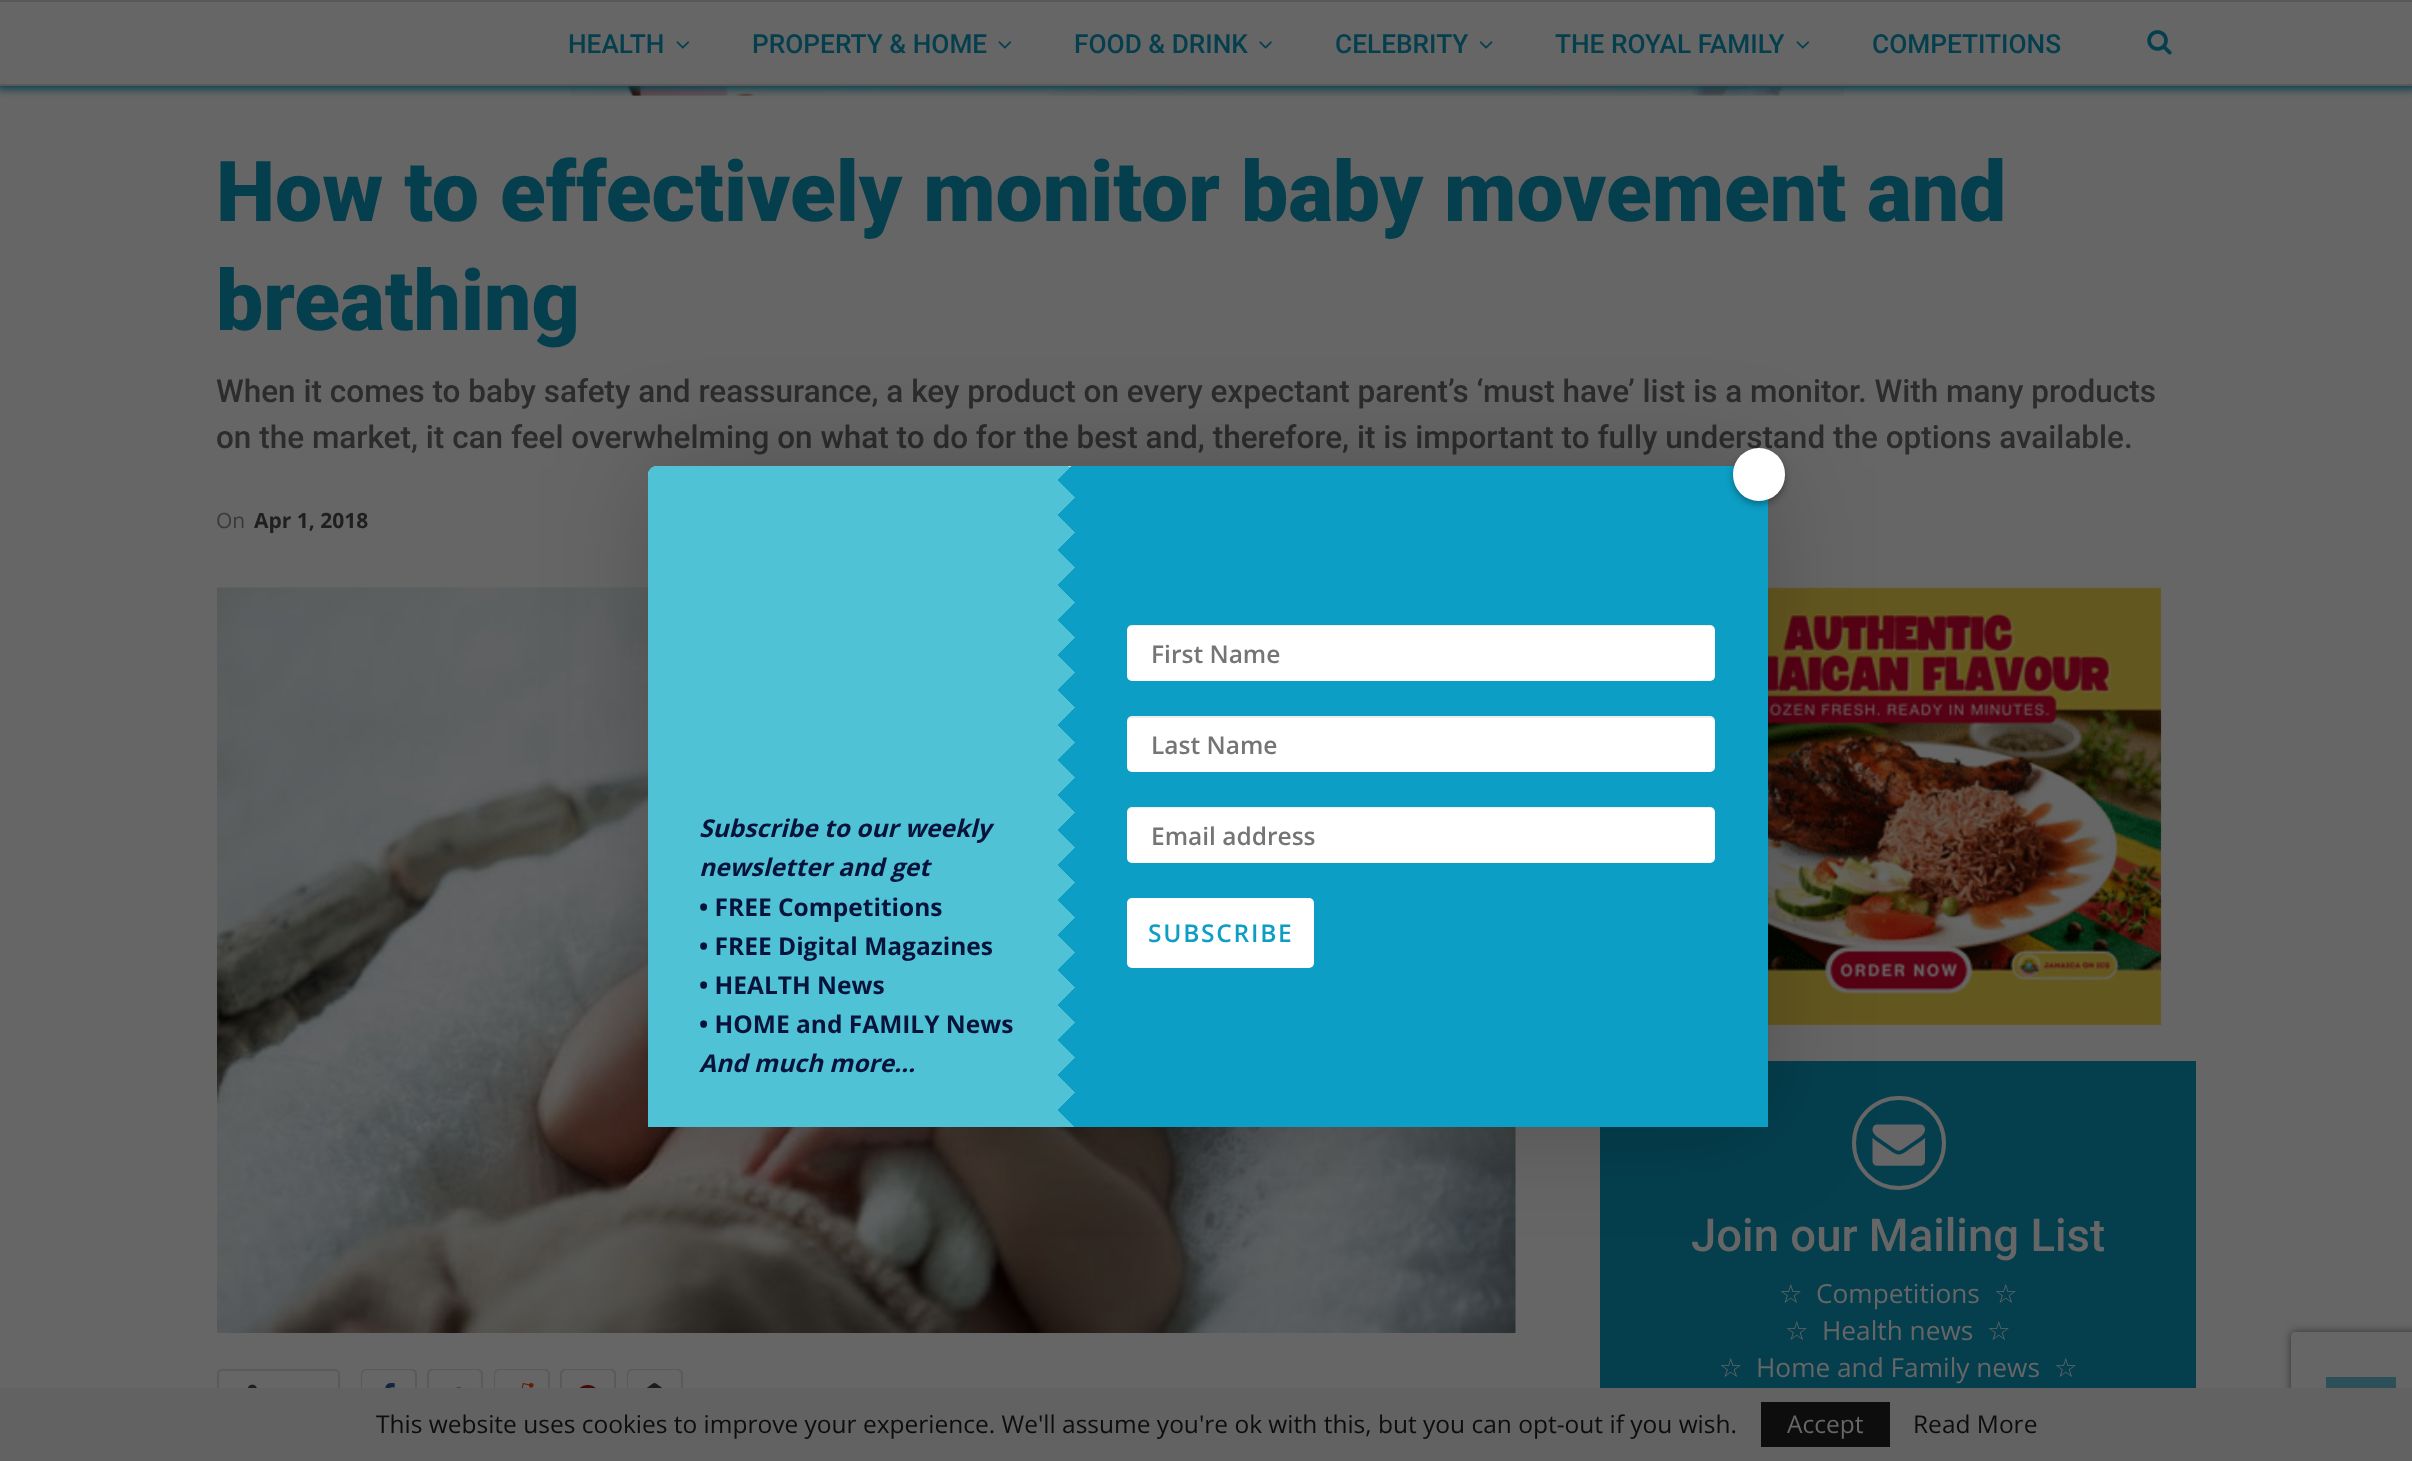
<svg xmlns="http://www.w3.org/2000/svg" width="2412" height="1461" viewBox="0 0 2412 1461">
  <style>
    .t1 { font: 500 26.25px Roboto; fill: #053f4e; }
    .t2 { font: 900 84px Roboto; fill: #053f4e; }
    .t3 { font: 500 31.5px Roboto; fill: #2c2c2c; }
    .t4 { font: 21px Open Sans; fill: #393939; }
    .t5 { font: bold 21px Open Sans; fill: #1f1f1f; }
    .t6 { font: 500 45.5px Roboto; fill: #666; }
    .t7 { font: 26.25px DejaVu Sans; fill: #666; }
    .t8 { font: 26.25px Open Sans; fill: #666; }
    .t9 { font: italic bold 24.5px Open Sans; fill: #08133c; }
    .t10 { font: bold 24.5px Open Sans; fill: #08133c; }
    .t11 { font: 600 24.5px Open Sans; fill: #757575; }
    .t12 { font: 600 24.5px Open Sans; letter-spacing: 1.75px; fill: #0c9ec4; }
    .t13 { font: 24.5px Open Sans; fill: #0d0d0d; }
    .t14 { font: 24.5px Open Sans; fill: #666; }
  </style>
  <defs>
    <clipPath id="clip1"><path d="M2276 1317H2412V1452H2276ZM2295 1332H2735C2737 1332 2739 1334 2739 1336V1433C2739 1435 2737 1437 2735 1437H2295C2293 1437 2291 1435 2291 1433V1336C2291 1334 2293 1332 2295 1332Z" clip-rule="evenodd"/></clipPath>
    <linearGradient id="g1" gradientUnits="userSpaceOnUse" x1="1119" y1="1101" x2="1067" y2="1154"><stop offset="0.33" stop-color="#0c9ec4" stop-opacity="0"/><stop offset="0.33" stop-color="#0c9ec4"/><stop offset="0.67" stop-color="#0c9ec4"/><stop offset="0.67" stop-color="#0c9ec4" stop-opacity="0"/></linearGradient>
    <linearGradient id="g2" gradientUnits="userSpaceOnUse" x1="1119" y1="1066" x2="1067" y2="1119"><stop offset="0.33" stop-color="#0c9ec4" stop-opacity="0"/><stop offset="0.33" stop-color="#0c9ec4"/><stop offset="0.67" stop-color="#0c9ec4"/><stop offset="0.67" stop-color="#0c9ec4" stop-opacity="0"/></linearGradient>
    <linearGradient id="g3" gradientUnits="userSpaceOnUse" x1="1119" y1="1031" x2="1067" y2="1084"><stop offset="0.33" stop-color="#0c9ec4" stop-opacity="0"/><stop offset="0.33" stop-color="#0c9ec4"/><stop offset="0.67" stop-color="#0c9ec4"/><stop offset="0.67" stop-color="#0c9ec4" stop-opacity="0"/></linearGradient>
    <linearGradient id="g4" gradientUnits="userSpaceOnUse" x1="1119" y1="996" x2="1067" y2="1049"><stop offset="0.33" stop-color="#0c9ec4" stop-opacity="0"/><stop offset="0.33" stop-color="#0c9ec4"/><stop offset="0.67" stop-color="#0c9ec4"/><stop offset="0.67" stop-color="#0c9ec4" stop-opacity="0"/></linearGradient>
    <linearGradient id="g5" gradientUnits="userSpaceOnUse" x1="1119" y1="961" x2="1067" y2="1014"><stop offset="0.33" stop-color="#0c9ec4" stop-opacity="0"/><stop offset="0.33" stop-color="#0c9ec4"/><stop offset="0.67" stop-color="#0c9ec4"/><stop offset="0.67" stop-color="#0c9ec4" stop-opacity="0"/></linearGradient>
    <linearGradient id="g6" gradientUnits="userSpaceOnUse" x1="1119" y1="926" x2="1067" y2="979"><stop offset="0.33" stop-color="#0c9ec4" stop-opacity="0"/><stop offset="0.33" stop-color="#0c9ec4"/><stop offset="0.67" stop-color="#0c9ec4"/><stop offset="0.67" stop-color="#0c9ec4" stop-opacity="0"/></linearGradient>
    <linearGradient id="g7" gradientUnits="userSpaceOnUse" x1="1119" y1="891" x2="1067" y2="944"><stop offset="0.33" stop-color="#0c9ec4" stop-opacity="0"/><stop offset="0.33" stop-color="#0c9ec4"/><stop offset="0.67" stop-color="#0c9ec4"/><stop offset="0.67" stop-color="#0c9ec4" stop-opacity="0"/></linearGradient>
    <linearGradient id="g8" gradientUnits="userSpaceOnUse" x1="1119" y1="856" x2="1067" y2="909"><stop offset="0.33" stop-color="#0c9ec4" stop-opacity="0"/><stop offset="0.33" stop-color="#0c9ec4"/><stop offset="0.67" stop-color="#0c9ec4"/><stop offset="0.67" stop-color="#0c9ec4" stop-opacity="0"/></linearGradient>
    <linearGradient id="g9" gradientUnits="userSpaceOnUse" x1="1119" y1="821" x2="1067" y2="874"><stop offset="0.33" stop-color="#0c9ec4" stop-opacity="0"/><stop offset="0.33" stop-color="#0c9ec4"/><stop offset="0.67" stop-color="#0c9ec4"/><stop offset="0.67" stop-color="#0c9ec4" stop-opacity="0"/></linearGradient>
    <linearGradient id="g10" gradientUnits="userSpaceOnUse" x1="1119" y1="786" x2="1067" y2="839"><stop offset="0.33" stop-color="#0c9ec4" stop-opacity="0"/><stop offset="0.33" stop-color="#0c9ec4"/><stop offset="0.67" stop-color="#0c9ec4"/><stop offset="0.67" stop-color="#0c9ec4" stop-opacity="0"/></linearGradient>
    <linearGradient id="g11" gradientUnits="userSpaceOnUse" x1="1119" y1="751" x2="1067" y2="804"><stop offset="0.33" stop-color="#0c9ec4" stop-opacity="0"/><stop offset="0.33" stop-color="#0c9ec4"/><stop offset="0.67" stop-color="#0c9ec4"/><stop offset="0.67" stop-color="#0c9ec4" stop-opacity="0"/></linearGradient>
    <linearGradient id="g12" gradientUnits="userSpaceOnUse" x1="1119" y1="716" x2="1067" y2="769"><stop offset="0.33" stop-color="#0c9ec4" stop-opacity="0"/><stop offset="0.33" stop-color="#0c9ec4"/><stop offset="0.67" stop-color="#0c9ec4"/><stop offset="0.67" stop-color="#0c9ec4" stop-opacity="0"/></linearGradient>
    <linearGradient id="g13" gradientUnits="userSpaceOnUse" x1="1119" y1="681" x2="1067" y2="734"><stop offset="0.33" stop-color="#0c9ec4" stop-opacity="0"/><stop offset="0.33" stop-color="#0c9ec4"/><stop offset="0.67" stop-color="#0c9ec4"/><stop offset="0.67" stop-color="#0c9ec4" stop-opacity="0"/></linearGradient>
    <linearGradient id="g14" gradientUnits="userSpaceOnUse" x1="1119" y1="646" x2="1067" y2="699"><stop offset="0.33" stop-color="#0c9ec4" stop-opacity="0"/><stop offset="0.33" stop-color="#0c9ec4"/><stop offset="0.67" stop-color="#0c9ec4"/><stop offset="0.67" stop-color="#0c9ec4" stop-opacity="0"/></linearGradient>
    <linearGradient id="g15" gradientUnits="userSpaceOnUse" x1="1119" y1="611" x2="1067" y2="664"><stop offset="0.33" stop-color="#0c9ec4" stop-opacity="0"/><stop offset="0.33" stop-color="#0c9ec4"/><stop offset="0.67" stop-color="#0c9ec4"/><stop offset="0.67" stop-color="#0c9ec4" stop-opacity="0"/></linearGradient>
    <linearGradient id="g16" gradientUnits="userSpaceOnUse" x1="1119" y1="576" x2="1067" y2="629"><stop offset="0.33" stop-color="#0c9ec4" stop-opacity="0"/><stop offset="0.33" stop-color="#0c9ec4"/><stop offset="0.67" stop-color="#0c9ec4"/><stop offset="0.67" stop-color="#0c9ec4" stop-opacity="0"/></linearGradient>
    <linearGradient id="g17" gradientUnits="userSpaceOnUse" x1="1119" y1="541" x2="1067" y2="594"><stop offset="0.33" stop-color="#0c9ec4" stop-opacity="0"/><stop offset="0.33" stop-color="#0c9ec4"/><stop offset="0.67" stop-color="#0c9ec4"/><stop offset="0.67" stop-color="#0c9ec4" stop-opacity="0"/></linearGradient>
    <linearGradient id="g18" gradientUnits="userSpaceOnUse" x1="1119" y1="506" x2="1067" y2="559"><stop offset="0.33" stop-color="#0c9ec4" stop-opacity="0"/><stop offset="0.33" stop-color="#0c9ec4"/><stop offset="0.67" stop-color="#0c9ec4"/><stop offset="0.67" stop-color="#0c9ec4" stop-opacity="0"/></linearGradient>
    <linearGradient id="g19" gradientUnits="userSpaceOnUse" x1="1119" y1="471" x2="1067" y2="524"><stop offset="0.33" stop-color="#0c9ec4" stop-opacity="0"/><stop offset="0.33" stop-color="#0c9ec4"/><stop offset="0.67" stop-color="#0c9ec4"/><stop offset="0.67" stop-color="#0c9ec4" stop-opacity="0"/></linearGradient>
    <linearGradient id="g20" gradientUnits="userSpaceOnUse" x1="1119" y1="1119" x2="1067" y2="1066"><stop offset="0.33" stop-color="#0c9ec4" stop-opacity="0"/><stop offset="0.33" stop-color="#0c9ec4"/><stop offset="0.67" stop-color="#0c9ec4"/><stop offset="0.67" stop-color="#0c9ec4" stop-opacity="0"/></linearGradient>
    <linearGradient id="g21" gradientUnits="userSpaceOnUse" x1="1119" y1="1084" x2="1067" y2="1031"><stop offset="0.33" stop-color="#0c9ec4" stop-opacity="0"/><stop offset="0.33" stop-color="#0c9ec4"/><stop offset="0.67" stop-color="#0c9ec4"/><stop offset="0.67" stop-color="#0c9ec4" stop-opacity="0"/></linearGradient>
    <linearGradient id="g22" gradientUnits="userSpaceOnUse" x1="1119" y1="1049" x2="1067" y2="996"><stop offset="0.33" stop-color="#0c9ec4" stop-opacity="0"/><stop offset="0.33" stop-color="#0c9ec4"/><stop offset="0.67" stop-color="#0c9ec4"/><stop offset="0.67" stop-color="#0c9ec4" stop-opacity="0"/></linearGradient>
    <linearGradient id="g23" gradientUnits="userSpaceOnUse" x1="1119" y1="1014" x2="1067" y2="961"><stop offset="0.33" stop-color="#0c9ec4" stop-opacity="0"/><stop offset="0.33" stop-color="#0c9ec4"/><stop offset="0.67" stop-color="#0c9ec4"/><stop offset="0.67" stop-color="#0c9ec4" stop-opacity="0"/></linearGradient>
    <linearGradient id="g24" gradientUnits="userSpaceOnUse" x1="1119" y1="979" x2="1067" y2="926"><stop offset="0.33" stop-color="#0c9ec4" stop-opacity="0"/><stop offset="0.33" stop-color="#0c9ec4"/><stop offset="0.67" stop-color="#0c9ec4"/><stop offset="0.67" stop-color="#0c9ec4" stop-opacity="0"/></linearGradient>
    <linearGradient id="g25" gradientUnits="userSpaceOnUse" x1="1119" y1="944" x2="1067" y2="891"><stop offset="0.33" stop-color="#0c9ec4" stop-opacity="0"/><stop offset="0.33" stop-color="#0c9ec4"/><stop offset="0.67" stop-color="#0c9ec4"/><stop offset="0.67" stop-color="#0c9ec4" stop-opacity="0"/></linearGradient>
    <linearGradient id="g26" gradientUnits="userSpaceOnUse" x1="1119" y1="909" x2="1067" y2="856"><stop offset="0.33" stop-color="#0c9ec4" stop-opacity="0"/><stop offset="0.33" stop-color="#0c9ec4"/><stop offset="0.67" stop-color="#0c9ec4"/><stop offset="0.67" stop-color="#0c9ec4" stop-opacity="0"/></linearGradient>
    <linearGradient id="g27" gradientUnits="userSpaceOnUse" x1="1119" y1="874" x2="1067" y2="821"><stop offset="0.33" stop-color="#0c9ec4" stop-opacity="0"/><stop offset="0.33" stop-color="#0c9ec4"/><stop offset="0.67" stop-color="#0c9ec4"/><stop offset="0.67" stop-color="#0c9ec4" stop-opacity="0"/></linearGradient>
    <linearGradient id="g28" gradientUnits="userSpaceOnUse" x1="1119" y1="839" x2="1067" y2="786"><stop offset="0.33" stop-color="#0c9ec4" stop-opacity="0"/><stop offset="0.33" stop-color="#0c9ec4"/><stop offset="0.67" stop-color="#0c9ec4"/><stop offset="0.67" stop-color="#0c9ec4" stop-opacity="0"/></linearGradient>
    <linearGradient id="g29" gradientUnits="userSpaceOnUse" x1="1119" y1="804" x2="1067" y2="751"><stop offset="0.33" stop-color="#0c9ec4" stop-opacity="0"/><stop offset="0.33" stop-color="#0c9ec4"/><stop offset="0.67" stop-color="#0c9ec4"/><stop offset="0.67" stop-color="#0c9ec4" stop-opacity="0"/></linearGradient>
    <linearGradient id="g30" gradientUnits="userSpaceOnUse" x1="1119" y1="769" x2="1067" y2="716"><stop offset="0.33" stop-color="#0c9ec4" stop-opacity="0"/><stop offset="0.33" stop-color="#0c9ec4"/><stop offset="0.67" stop-color="#0c9ec4"/><stop offset="0.67" stop-color="#0c9ec4" stop-opacity="0"/></linearGradient>
    <linearGradient id="g31" gradientUnits="userSpaceOnUse" x1="1119" y1="734" x2="1067" y2="681"><stop offset="0.33" stop-color="#0c9ec4" stop-opacity="0"/><stop offset="0.33" stop-color="#0c9ec4"/><stop offset="0.67" stop-color="#0c9ec4"/><stop offset="0.67" stop-color="#0c9ec4" stop-opacity="0"/></linearGradient>
    <linearGradient id="g32" gradientUnits="userSpaceOnUse" x1="1119" y1="699" x2="1067" y2="646"><stop offset="0.33" stop-color="#0c9ec4" stop-opacity="0"/><stop offset="0.33" stop-color="#0c9ec4"/><stop offset="0.67" stop-color="#0c9ec4"/><stop offset="0.67" stop-color="#0c9ec4" stop-opacity="0"/></linearGradient>
    <linearGradient id="g33" gradientUnits="userSpaceOnUse" x1="1119" y1="664" x2="1067" y2="611"><stop offset="0.33" stop-color="#0c9ec4" stop-opacity="0"/><stop offset="0.33" stop-color="#0c9ec4"/><stop offset="0.67" stop-color="#0c9ec4"/><stop offset="0.67" stop-color="#0c9ec4" stop-opacity="0"/></linearGradient>
    <linearGradient id="g34" gradientUnits="userSpaceOnUse" x1="1119" y1="629" x2="1067" y2="576"><stop offset="0.33" stop-color="#0c9ec4" stop-opacity="0"/><stop offset="0.33" stop-color="#0c9ec4"/><stop offset="0.67" stop-color="#0c9ec4"/><stop offset="0.67" stop-color="#0c9ec4" stop-opacity="0"/></linearGradient>
    <linearGradient id="g35" gradientUnits="userSpaceOnUse" x1="1119" y1="594" x2="1067" y2="541"><stop offset="0.33" stop-color="#0c9ec4" stop-opacity="0"/><stop offset="0.33" stop-color="#0c9ec4"/><stop offset="0.67" stop-color="#0c9ec4"/><stop offset="0.67" stop-color="#0c9ec4" stop-opacity="0"/></linearGradient>
    <linearGradient id="g36" gradientUnits="userSpaceOnUse" x1="1119" y1="559" x2="1067" y2="506"><stop offset="0.33" stop-color="#0c9ec4" stop-opacity="0"/><stop offset="0.33" stop-color="#0c9ec4"/><stop offset="0.67" stop-color="#0c9ec4"/><stop offset="0.67" stop-color="#0c9ec4" stop-opacity="0"/></linearGradient>
    <linearGradient id="g37" gradientUnits="userSpaceOnUse" x1="1119" y1="524" x2="1067" y2="471"><stop offset="0.33" stop-color="#0c9ec4" stop-opacity="0"/><stop offset="0.33" stop-color="#0c9ec4"/><stop offset="0.67" stop-color="#0c9ec4"/><stop offset="0.67" stop-color="#0c9ec4" stop-opacity="0"/></linearGradient>
    <linearGradient id="g38" gradientUnits="userSpaceOnUse" x1="1119" y1="489" x2="1067" y2="436"><stop offset="0.33" stop-color="#0c9ec4" stop-opacity="0"/><stop offset="0.33" stop-color="#0c9ec4"/><stop offset="0.67" stop-color="#0c9ec4"/><stop offset="0.67" stop-color="#0c9ec4" stop-opacity="0"/></linearGradient>
  </defs>
  <rect width="100%" height="100%" fill="#666"/>
  <image x="571" y="86" width="1274" height="10" href="images/5.png"/>
  <rect x="-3" y="-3" width="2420" height="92" fill="#053f4e" filter="blur(4.5px)"/>
  <rect x="0" y="2" width="2412" height="82" fill="#666"/>
  <rect x="0" y="0" width="2412" height="2" fill="#595959"/>
  <rect x="0" y="84" width="2412" height="2" fill="#595959"/>
  <text x="568" y="53" class="t1">HEALTH</text>
  <image x="676" y="41" width="14" height="8" href="images/1.png"/>
  <text x="752" y="53" class="t1">PROPERTY &amp; HOME</text>
  <image x="998" y="41" width="14" height="8" href="images/1.png"/>
  <text x="1074" y="53" class="t1">FOOD &amp; DRINK</text>
  <image x="1259" y="41" width="13" height="8" href="images/2.png"/>
  <text x="1335" y="53" class="t1">CELEBRITY</text>
  <image x="1479" y="41" width="14" height="8" href="images/3.png"/>
  <text x="1555" y="53" class="t1">THE ROYAL FAMILY</text>
  <image x="1796" y="41" width="14" height="8" href="images/1.png"/>
  <text x="1872" y="53" class="t1">COMPETITIONS</text>
  <image x="2147" y="30" width="25" height="25" href="images/4.png"/>
  <text x="216" y="221" class="t2">How to effectively monitor baby movement and</text>
  <text x="216" y="330" class="t2">breathing</text>
  <text x="216" y="402" class="t3">When it comes to baby safety and reassurance, a key product on every expectant parent’s ‘must have’ list is a monitor. With many products</text>
  <text x="216" y="448" class="t3">on the market, it can feel overwhelming on what to do for the best and, therefore, it is important to fully understand the options available.</text>
  <text x="216" y="528" class="t4">On</text>
  <text x="254" y="528" class="t5">Apr 1, 2018</text>
  <image x="217" y="587" width="1299" height="746" href="images/6.png"/>
  <rect x="218" y="1370" width="121" height="54" rx="4" fill="none" stroke="#5a5a5a" stroke-width="2"/>
  <image x="247" y="1384" width="10" height="4" href="images/7.png"/>
  <path d="M338 1407V1386L348 1396.5Z" fill="#565656"/>
  <rect x="362" y="1370" width="54" height="54" rx="4" fill="none" stroke="#5a5a5a" stroke-width="2"/>
  <rect x="362" y="1370" width="53" height="53" rx="5" fill="#666"/>
  <image x="385" y="1383" width="10" height="5" href="images/8.png"/>
  <rect x="428" y="1370" width="54" height="54" rx="4" fill="none" stroke="#5a5a5a" stroke-width="2"/>
  <rect x="429" y="1370" width="52" height="53" rx="5" fill="#666"/>
  <image x="455" y="1387" width="11" height="1" href="images/9.png"/>
  <rect x="495" y="1370" width="54" height="54" rx="4" fill="none" stroke="#5a5a5a" stroke-width="2"/>
  <rect x="495" y="1370" width="53" height="53" rx="5" fill="#666"/>
  <image x="521" y="1383" width="13" height="5" href="images/10.png"/>
  <rect x="561" y="1370" width="54" height="54" rx="4" fill="none" stroke="#5a5a5a" stroke-width="2"/>
  <rect x="562" y="1370" width="52" height="53" rx="5" fill="#666"/>
  <image x="580" y="1385" width="16" height="3" href="images/11.png"/>
  <rect x="628" y="1370" width="54" height="54" rx="4" fill="none" stroke="#5a5a5a" stroke-width="2"/>
  <rect x="628" y="1370" width="53" height="53" rx="5" fill="#666"/>
  <image x="647" y="1383" width="15" height="5" href="images/12.png"/>
  <image x="1768" y="587" width="394" height="438" href="images/13.png"/>
  <rect x="1600" y="1061" width="596" height="327" fill="#053f4e"/>
  <circle cx="1899" cy="1143" r="45" fill="none" stroke="#666" stroke-width="4"/>
  <image x="1872" y="1124" width="53" height="42" href="images/14.png"/>
  <text x="1691" y="1251" class="t6">Join our Mailing List</text>
  <text x="1779" y="1303" class="t7">☆</text>
  <text x="1816" y="1303" class="t8">Competitions</text>
  <text x="1994" y="1303" class="t7">☆</text>
  <text x="1785" y="1340" class="t7">☆</text>
  <text x="1822" y="1340" class="t8">Health news</text>
  <text x="1987" y="1340" class="t7">☆</text>
  <text x="1719" y="1377" class="t7">☆</text>
  <text x="1756" y="1377" class="t8">Home and Family news</text>
  <text x="2054" y="1377" class="t7">☆</text>
  <g clip-path="url(#clip1)">
    <rect x="2291" y="1332" width="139" height="105" rx="4" fill="#333" filter="blur(4.5px)"/>
  </g>
  <rect x="648" y="466" width="1120" height="661" rx="9" fill="#00000033" filter="blur(52.5px)"/>
  <rect x="648" y="466" width="1120" height="661" rx="9" fill="#dadfe4"/>
  <rect x="1076" y="466" width="692" height="661" fill="#0c9ec4"/>
  <rect x="1733" y="452" width="52" height="52" rx="26" fill="#00000057" filter="blur(3.5px)"/>
  <rect x="1733" y="448" width="52" height="53" rx="26" fill="#fff"/>
  <path d="M657 466H1066C1071 466 1075 470 1075 475V1127H648V475C648 470 652 466 657 466Z" fill="#4fc3d5"/>
  <text x="699" y="837" class="t9">Subscribe to our weekly</text>
  <text x="699" y="876" class="t9">newsletter and get</text>
  <text x="699" y="916" class="t10">• FREE Competitions</text>
  <text x="699" y="955" class="t10">• FREE Digital Magazines</text>
  <text x="699" y="994" class="t10">• HEALTH News</text>
  <text x="699" y="1033" class="t10">• HOME and FAMILY News</text>
  <text x="699" y="1072" class="t9">And much more…</text>
  <rect x="1058" y="1110" width="18" height="17" fill="url(#g1)"/>
  <rect x="1058" y="1075" width="18" height="17" fill="url(#g2)"/>
  <rect x="1058" y="1040" width="18" height="17" fill="url(#g3)"/>
  <rect x="1058" y="1005" width="18" height="17" fill="url(#g4)"/>
  <rect x="1058" y="970" width="18" height="17" fill="url(#g5)"/>
  <rect x="1058" y="935" width="18" height="17" fill="url(#g6)"/>
  <rect x="1058" y="900" width="18" height="17" fill="url(#g7)"/>
  <rect x="1058" y="865" width="18" height="17" fill="url(#g8)"/>
  <rect x="1058" y="830" width="18" height="17" fill="url(#g9)"/>
  <rect x="1058" y="795" width="18" height="17" fill="url(#g10)"/>
  <rect x="1058" y="760" width="18" height="17" fill="url(#g11)"/>
  <rect x="1058" y="725" width="18" height="17" fill="url(#g12)"/>
  <rect x="1058" y="690" width="18" height="17" fill="url(#g13)"/>
  <rect x="1058" y="655" width="18" height="17" fill="url(#g14)"/>
  <rect x="1058" y="620" width="18" height="17" fill="url(#g15)"/>
  <rect x="1058" y="585" width="18" height="17" fill="url(#g16)"/>
  <rect x="1058" y="550" width="18" height="17" fill="url(#g17)"/>
  <rect x="1058" y="515" width="18" height="17" fill="url(#g18)"/>
  <rect x="1058" y="480" width="18" height="17" fill="url(#g19)"/>
  <rect x="1058" y="1092" width="18" height="18" fill="url(#g20)"/>
  <rect x="1058" y="1057" width="18" height="18" fill="url(#g21)"/>
  <rect x="1058" y="1022" width="18" height="18" fill="url(#g22)"/>
  <rect x="1058" y="987" width="18" height="18" fill="url(#g23)"/>
  <rect x="1058" y="952" width="18" height="18" fill="url(#g24)"/>
  <rect x="1058" y="917" width="18" height="18" fill="url(#g25)"/>
  <rect x="1058" y="882" width="18" height="18" fill="url(#g26)"/>
  <rect x="1058" y="847" width="18" height="18" fill="url(#g27)"/>
  <rect x="1058" y="812" width="18" height="18" fill="url(#g28)"/>
  <rect x="1058" y="777" width="18" height="18" fill="url(#g29)"/>
  <rect x="1058" y="742" width="18" height="18" fill="url(#g30)"/>
  <rect x="1058" y="707" width="18" height="18" fill="url(#g31)"/>
  <rect x="1058" y="672" width="18" height="18" fill="url(#g32)"/>
  <rect x="1058" y="637" width="18" height="18" fill="url(#g33)"/>
  <rect x="1058" y="602" width="18" height="18" fill="url(#g34)"/>
  <rect x="1058" y="567" width="18" height="18" fill="url(#g35)"/>
  <rect x="1058" y="532" width="18" height="18" fill="url(#g36)"/>
  <rect x="1058" y="497" width="18" height="18" fill="url(#g37)"/>
  <rect x="1058" y="466" width="18" height="14" fill="url(#g38)"/>
  <rect x="1127" y="625" width="588" height="56" rx="5" fill="#fff"/>
  <path d="M1132 626H1710C1713 626 1715 629 1715 632V630C1715 627 1713 625 1710 625H1132C1129 625 1127 627 1127 630V632C1127 629 1129 626 1132 626Z" fill="#00000012"/>
  <text x="1151" y="663" class="t11">First Name</text>
  <rect x="1127" y="716" width="588" height="56" rx="5" fill="#fff"/>
  <path d="M1132 718H1710C1713 718 1715 720 1715 723V721C1715 718 1713 716 1710 716H1132C1129 716 1127 718 1127 721V723C1127 720 1129 718 1132 718Z" fill="#00000012"/>
  <text x="1151" y="754" class="t11">Last Name</text>
  <rect x="1127" y="807" width="588" height="56" rx="5" fill="#fff"/>
  <path d="M1132 808H1710C1713 808 1715 811 1715 814V812C1715 809 1713 807 1710 807H1132C1129 807 1127 809 1127 812V814C1127 811 1129 808 1132 808Z" fill="#00000012"/>
  <text x="1151" y="845" class="t11">Email address</text>
  <rect x="1127" y="898" width="187" height="70" rx="5" fill="#fff"/>
  <text x="1148" y="942" class="t12">SUBSCRIBE</text>
  <rect x="2326" y="1377" width="70" height="11" fill="#053f4e99"/>
  <rect x="0" y="1388" width="2412" height="73" fill="#626262"/>
  <text x="376" y="1433" class="t13">This website uses cookies to improve your experience. We'll assume you're ok with this, but you can opt-out if you wish.</text>
  <rect x="1761" y="1402" width="129" height="45" fill="#0d0d0d"/>
  <text x="1787" y="1433" class="t14">Accept</text>
  <text x="1913" y="1433" class="t13">Read More</text>
</svg>
